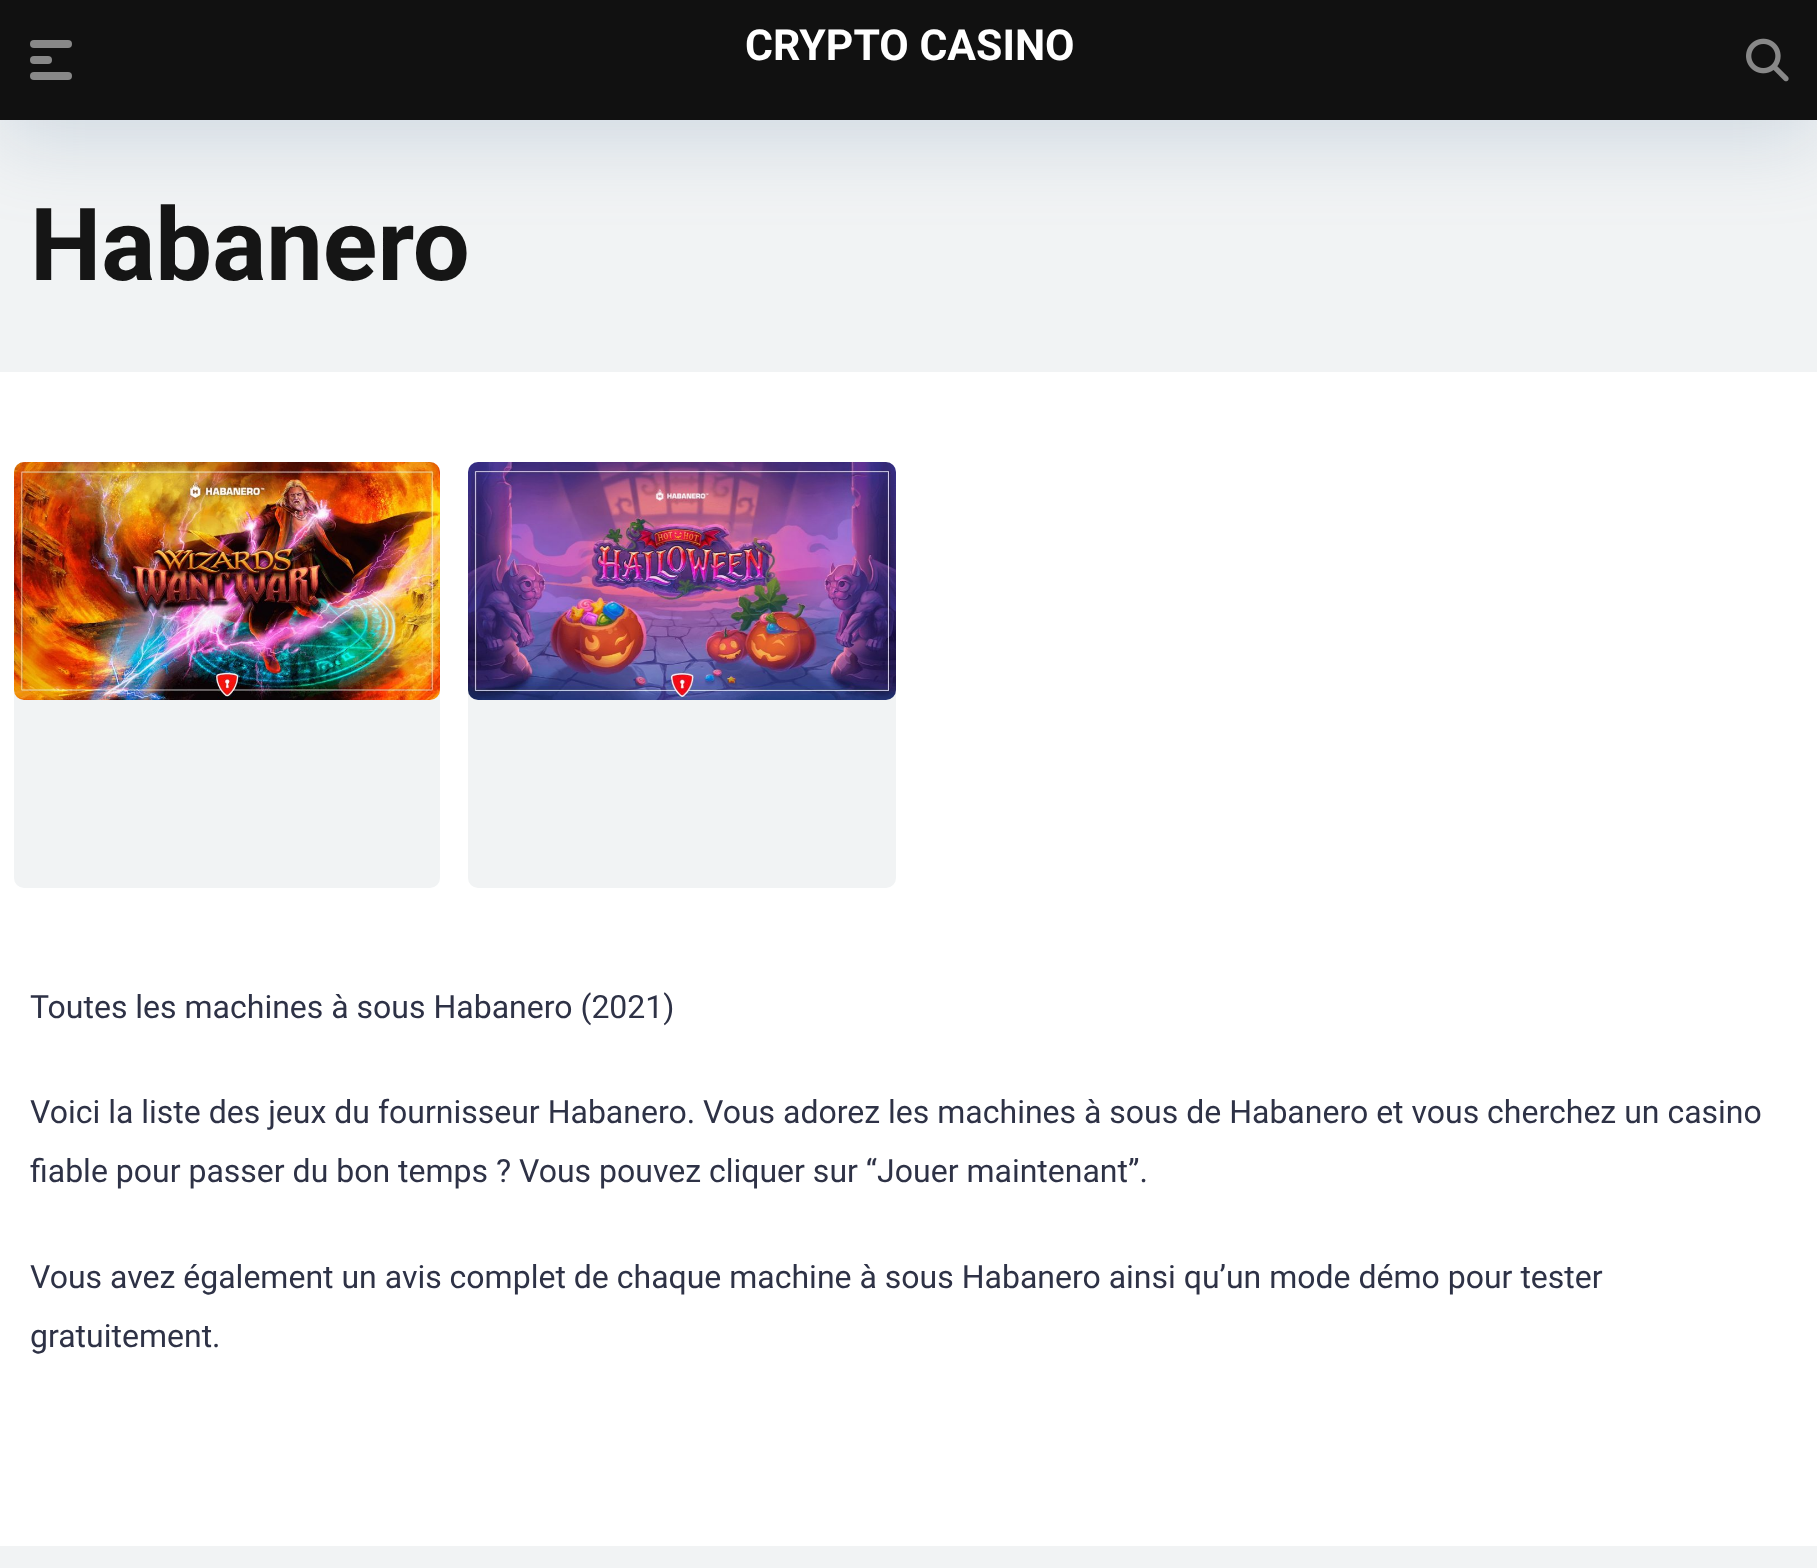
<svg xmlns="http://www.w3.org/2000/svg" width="1817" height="1568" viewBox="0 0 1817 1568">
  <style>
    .t1 { font: bold 42.75px Roboto; fill: #fff; }
    .t2 { font: bold 101px Roboto; fill: #151515; }
    .t3 { font: 32px Roboto; fill: #2e3246; }
  </style>
  <rect width="100%" height="100%" fill="#fff"/>
  <rect x="0" y="120" width="1817" height="252" fill="#f1f3f4"/>
  <rect x="0" y="20" width="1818" height="120" fill="#6d8dad40" filter="blur(40px)"/>
  <rect x="0" y="0" width="1817" height="120" fill="#111"/>
  <rect x="30" y="40" width="42" height="8" rx="4" fill="#888"/>
  <rect x="30" y="56" width="22" height="8" rx="4" fill="#888"/>
  <rect x="30" y="72" width="42" height="8" rx="4" fill="#888"/>
  <text x="745" y="60" class="t1">CRYPTO CASINO</text>
  <image x="1746" y="38" width="43" height="44" href="images/1.png"/>
  <text x="30" y="280" class="t2">Habanero</text>
  <rect x="14" y="462" width="426" height="426" rx="10" fill="#f1f3f4"/>
  <image x="14" y="462" width="426" height="238" href="images/2.png"/>
  <rect x="468" y="462" width="428" height="426" rx="10" fill="#f1f3f4"/>
  <image x="468" y="462" width="428" height="238" href="images/3.png"/>
  <text x="30" y="1018" class="t3">Toutes les machines à sous Habanero (2021)</text>
  <text x="30" y="1123" class="t3">Voici la liste des jeux du fournisseur Habanero. Vous adorez les machines à sous de Habanero et vous cherchez un casino</text>
  <text x="30" y="1182" class="t3">fiable pour passer du bon temps ? Vous pouvez cliquer sur “Jouer maintenant”.</text>
  <text x="30" y="1288" class="t3">Vous avez également un avis complet de chaque machine à sous Habanero ainsi qu’un mode démo pour tester</text>
  <text x="30" y="1347" class="t3">gratuitement.</text>
  <rect x="0" y="1546" width="1817" height="22" fill="#f1f3f4"/>
</svg>
